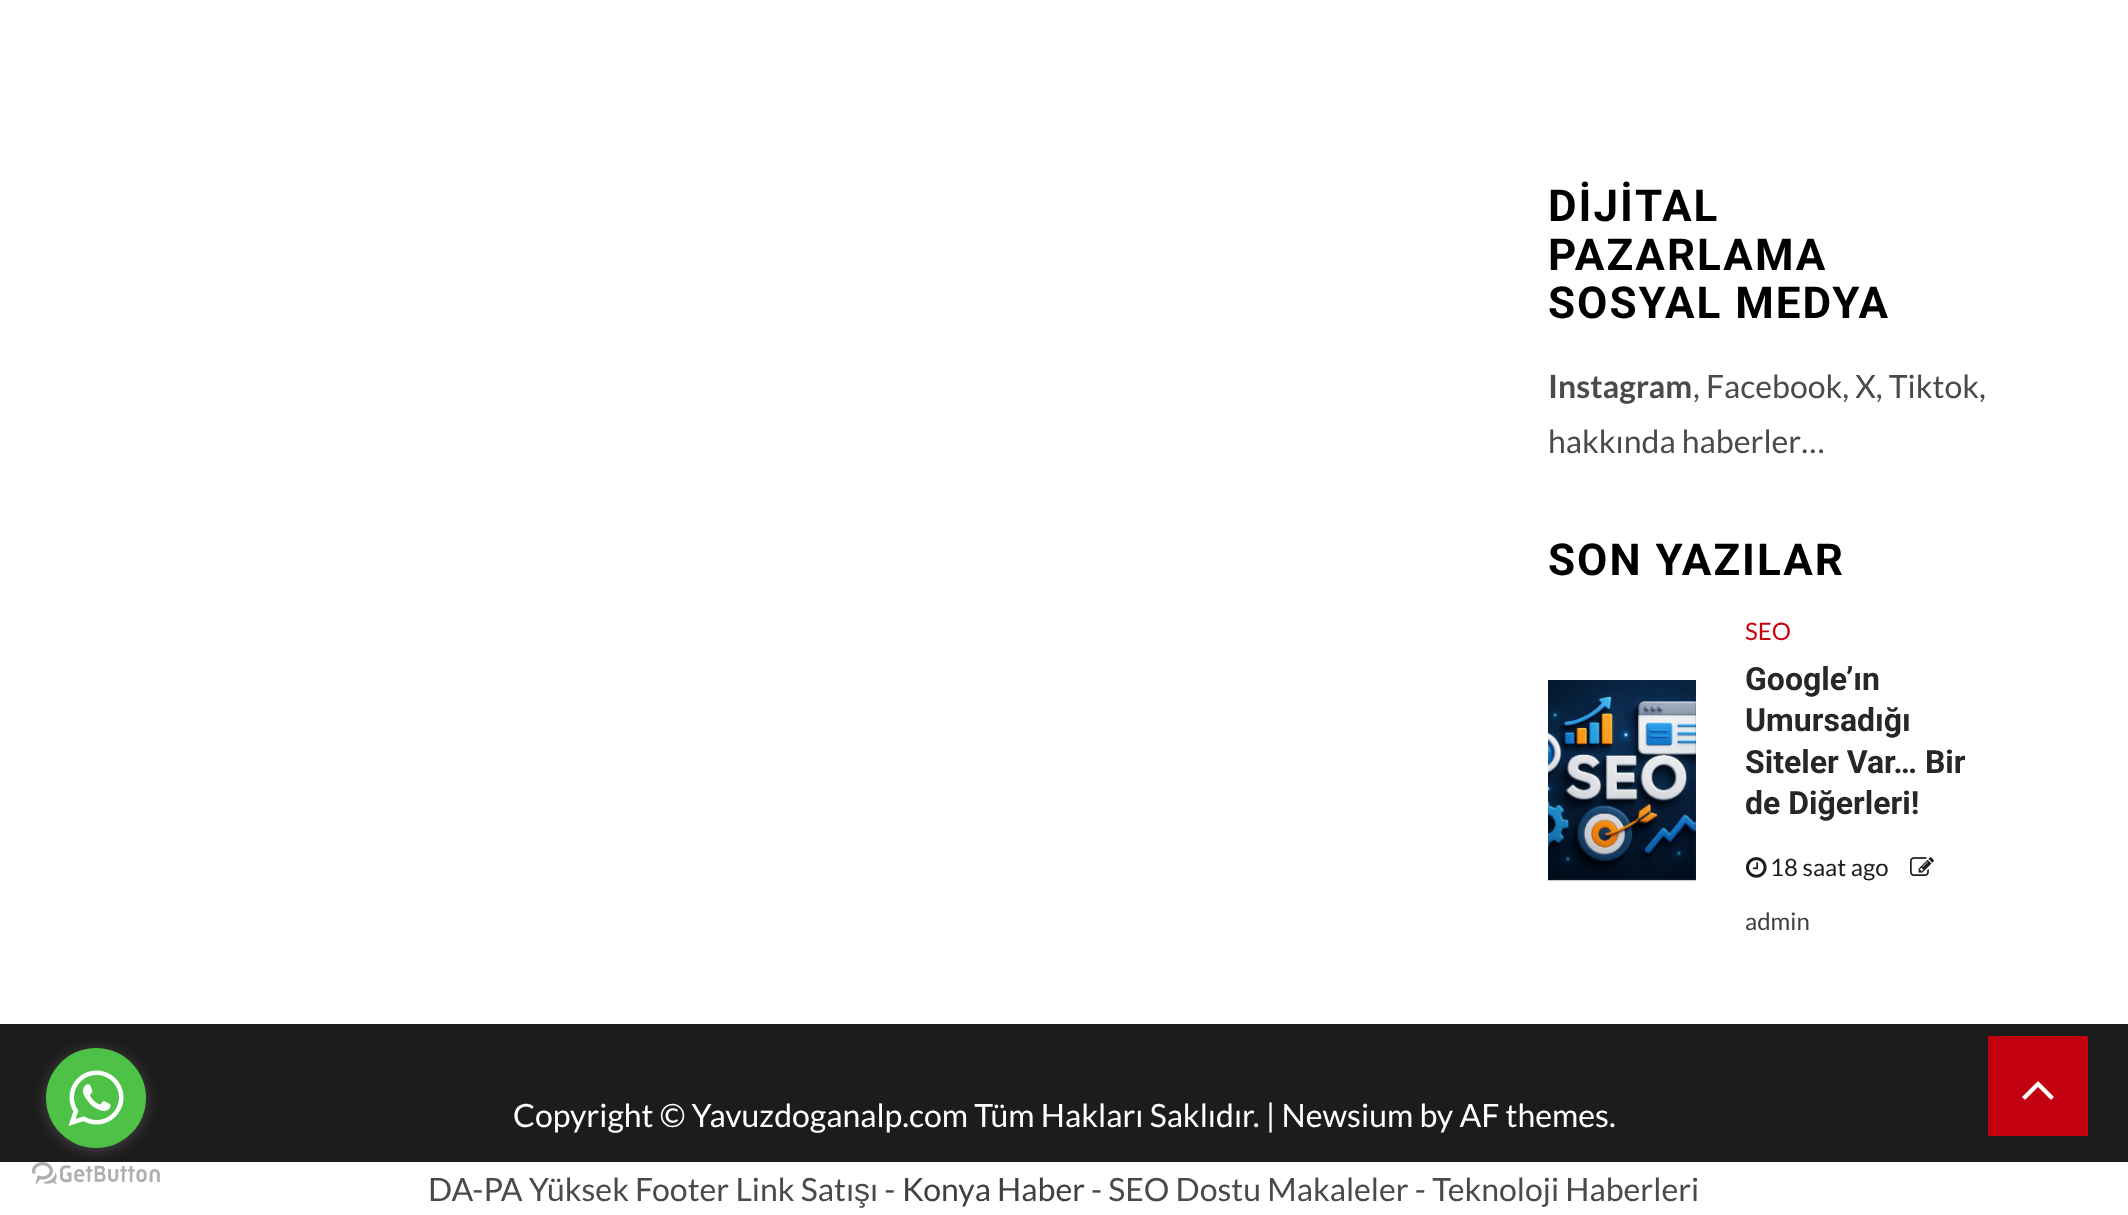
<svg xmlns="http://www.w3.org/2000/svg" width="2128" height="1215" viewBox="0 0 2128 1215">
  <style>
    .t1 { font: bold 44px Roboto; letter-spacing: 2px; fill: #000; }
    .t2 { font: bold 32px Lato; fill: #4a4a4a; }
    .t3 { font: 32px Lato; fill: #4a4a4a; }
    .t4 { font: 24px Lato; fill: #cc0010; }
    .t5 { font: bold 32px Roboto; fill: #272727; }
    .t6 { font: 24px Lato; fill: #1c1c1c; }
    .t7 { font: 24px Lato; fill: #404040; }
    .t8 { font: 32px Lato; fill: #fff; }
    .t9 { font: 32px Liberation Sans; fill: #4a4a4a; }
    .t10 { font: 32px Lato; fill: #404040; }
  </style>
  <rect width="100%" height="100%" fill="#fff"/>
  <image x="32" y="1162" width="128" height="22" href="images/2.png"/>
  <rect x="0" y="1024" width="2128" height="138" fill="#1c1c1c"/>
  <rect x="46" y="1050" width="100" height="100" rx="50" fill="#88888866" filter="blur(7px)"/>
  <circle cx="96" cy="1098" r="50" fill="#4dc247"/>
  <image x="68" y="1070" width="56" height="56" href="images/1.png"/>
  <text x="1548" y="221" class="t1">DİJİTAL</text>
  <text x="1548" y="270" class="t1">PAZARLAMA</text>
  <text x="1548" y="318" class="t1">SOSYAL MEDYA</text>
  <text x="1548" y="398" class="t2">Instagram</text>
  <text x="1693" y="398" class="t3">, Facebook, X, Tiktok,</text>
  <text x="1548" y="453" class="t3">hakkında haberler…</text>
  <text x="1548" y="575" class="t1">SON YAZILAR</text>
  <rect x="1548" y="680" width="148" height="200" fill="#404040"/>
  <image x="1548" y="680" width="148" height="201" href="images/3.png"/>
  <text x="1745" y="640" class="t4">SEO</text>
  <text x="1745" y="690" class="t5">Google’ın</text>
  <text x="1745" y="731" class="t5">Umursadığı</text>
  <text x="1745" y="773" class="t5">Siteler Var… Bir</text>
  <text x="1745" y="814" class="t5">de Diğerleri!</text>
  <image x="1746" y="857" width="21" height="21" href="images/4.png"/>
  <text x="1770" y="876" class="t6">18 saat ago</text>
  <image x="1910" y="857" width="24" height="19" href="images/5.png"/>
  <text x="1745" y="930" class="t7">admin</text>
  <text x="513" y="1127" class="t8">Copyright © Yavuzdoganalp.com Tüm Hakları Saklıdır. | Newsium by AF themes.</text>
  <rect x="1988" y="1036" width="100" height="100" fill="#c30010"/>
  <image x="2022" y="1081" width="32" height="19" href="images/6.png"/>
  <text x="428" y="1201" class="t3">DA-PA Yüksek Footer Link Satı</text>
  <text x="854" y="1201" class="t9">ş</text>
  <text x="870" y="1201" class="t3">ı -</text>
  <text x="902" y="1201" class="t10">Konya Haber</text>
  <text x="1091" y="1201" class="t3">- SEO Dostu Makaleler - Teknoloji Haberleri</text>
</svg>
